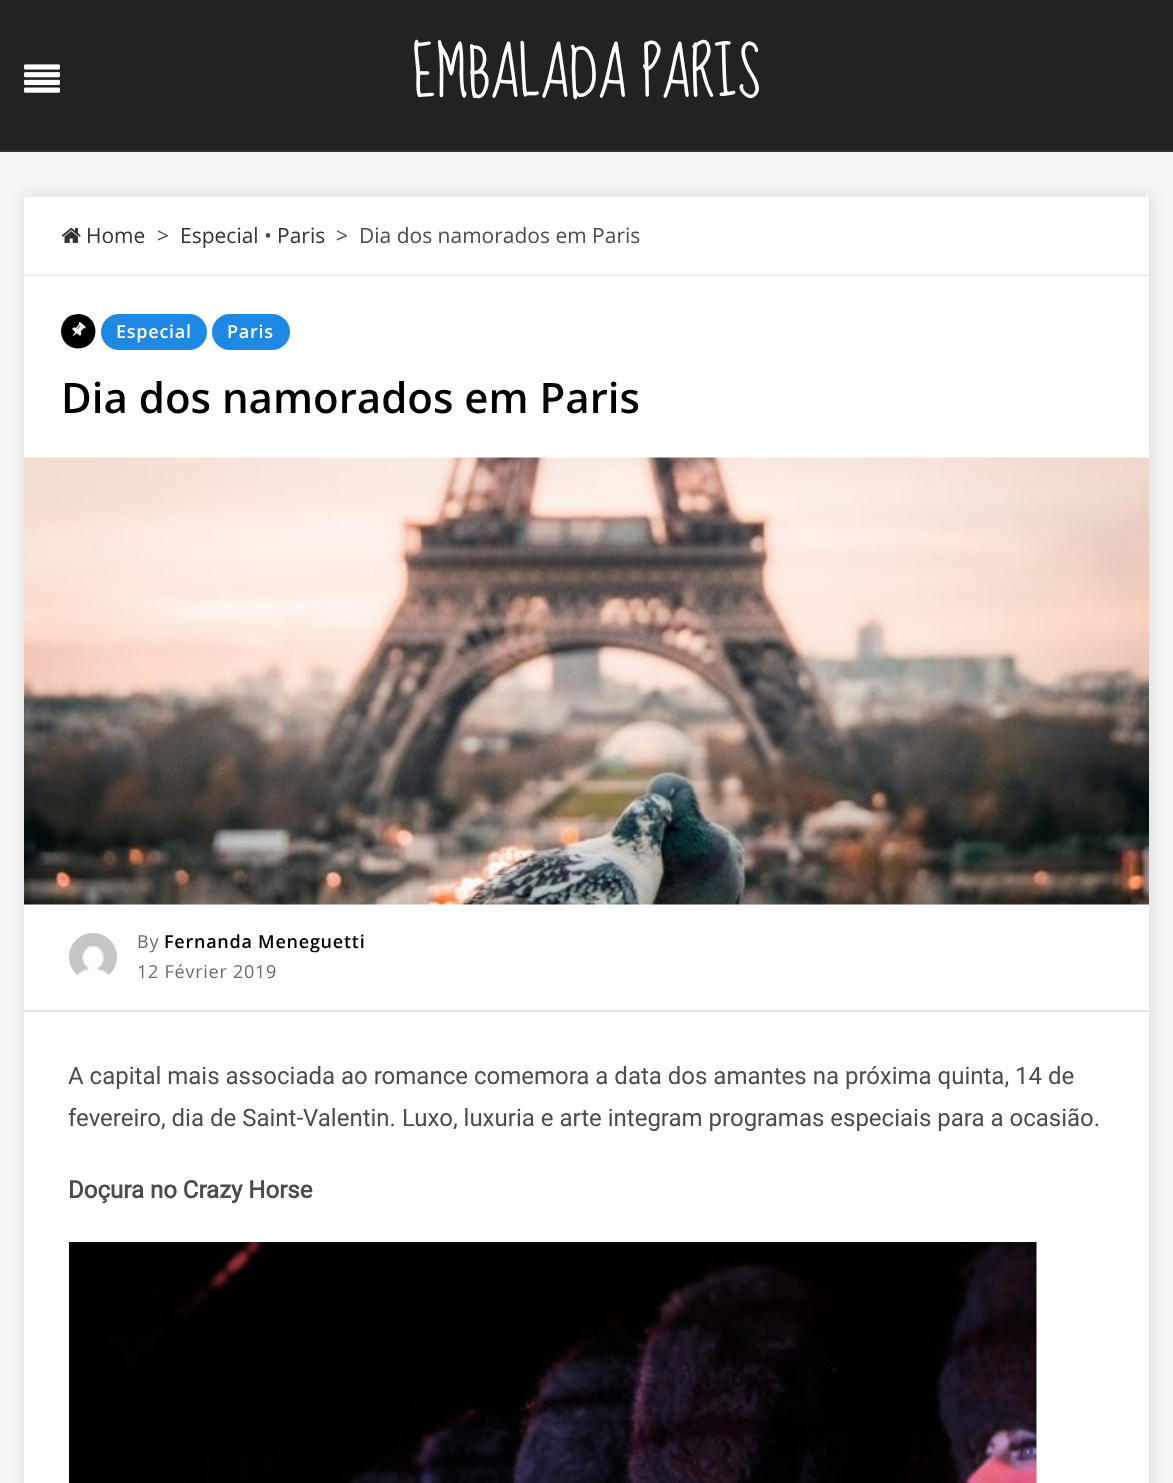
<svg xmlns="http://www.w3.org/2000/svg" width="1173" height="1483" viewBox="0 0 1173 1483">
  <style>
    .t1 { font: 60px Sue Ellen Francisco; fill: #fff; }
    .t2 { font: 21px Open Sans; fill: #333; }
    .t3 { font: 21px Open Sans; fill: #4c4c4c; }
    .t4 { font: 600 18px Open Sans; letter-spacing: 0.75px; fill: #fff; }
    .t5 { font: 600 42px Open Sans; fill: #000; }
    .t6 { font: 18px Open Sans; letter-spacing: 0.75px; fill: #6b6b6b; }
    .t7 { font: 600 18px Open Sans; letter-spacing: 0.75px; fill: #000; }
    .t8 { font: 24px Roboto; fill: #4c4c4c; }
    .t9 { font: bold 24px Roboto; fill: #4c4c4c; }
  </style>
  <rect width="100%" height="100%" fill="#f6f6f6"/>
  <rect x="0" y="0" width="1173" height="150" fill="#222"/>
  <rect x="0" y="150" width="1173" height="2" fill="#343434"/>
  <image x="24" y="64" width="36" height="29" href="images/1.png"/>
  <text x="412" y="96" class="t1">EMBALADA PARIS</text>
  <rect x="23" y="195" width="1128" height="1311" fill="#0000001a" filter="blur(7.5px)"/>
  <rect x="24" y="197" width="1125" height="78" fill="#fff"/>
  <rect x="24" y="275" width="1125" height="1" fill="#e6e6e6"/>
  <image x="61" y="228" width="20" height="15" href="images/2.png"/>
  <text x="86" y="243" class="t2">Home</text>
  <text x="157" y="243" class="t3">&gt;</text>
  <text x="180" y="243" class="t2">Especial</text>
  <text x="264" y="243" class="t3">•</text>
  <text x="277" y="243" class="t2">Paris</text>
  <text x="336" y="243" class="t3">&gt;</text>
  <text x="359" y="243" class="t3">Dia dos namorados em Paris</text>
  <rect x="24" y="276" width="1125" height="1207" fill="#fff"/>
  <path d="M89.5 318C96.5 324 97.5 335 91.5 342.5C85.5 349.5 74.5 350.5 67 344.5C60 338.5 59 327.5 65 320C71 313 82 312 89.5 318Z" fill="#000"/>
  <image x="72" y="322" width="14" height="15" href="images/3.png"/>
  <rect x="101" y="314" width="106" height="36" rx="18" fill="#1e88e5"/>
  <text x="116" y="338" class="t4">Especial</text>
  <rect x="212" y="314" width="78" height="36" rx="18" fill="#1e88e5"/>
  <text x="227" y="338" class="t4">Paris</text>
  <text x="61" y="413" class="t5">Dia dos namorados em Paris</text>
  <image x="24" y="457" width="1125" height="448" href="images/4.png"/>
  <rect x="24" y="1010" width="1125" height="2" fill="#e6e6e6"/>
  <image x="69" y="933" width="48" height="44" href="images/5.png"/>
  <text x="137" y="948" class="t6">By</text>
  <text x="164" y="948" class="t7">Fernanda Meneguetti</text>
  <text x="137" y="978" class="t6">12 Février 2019</text>
  <text x="68" y="1084" class="t8">A capital mais associada ao romance comemora a data dos amantes na próxima quinta, 14 de</text>
  <text x="68" y="1126" class="t8">fevereiro, dia de Saint-Valentin. Luxo, luxuria e arte integram programas especiais para a ocasião.</text>
  <text x="68" y="1198" class="t9">Doçura no Crazy Horse</text>
  <image x="69" y="1242" width="968" height="241" href="images/6.png"/>
</svg>
